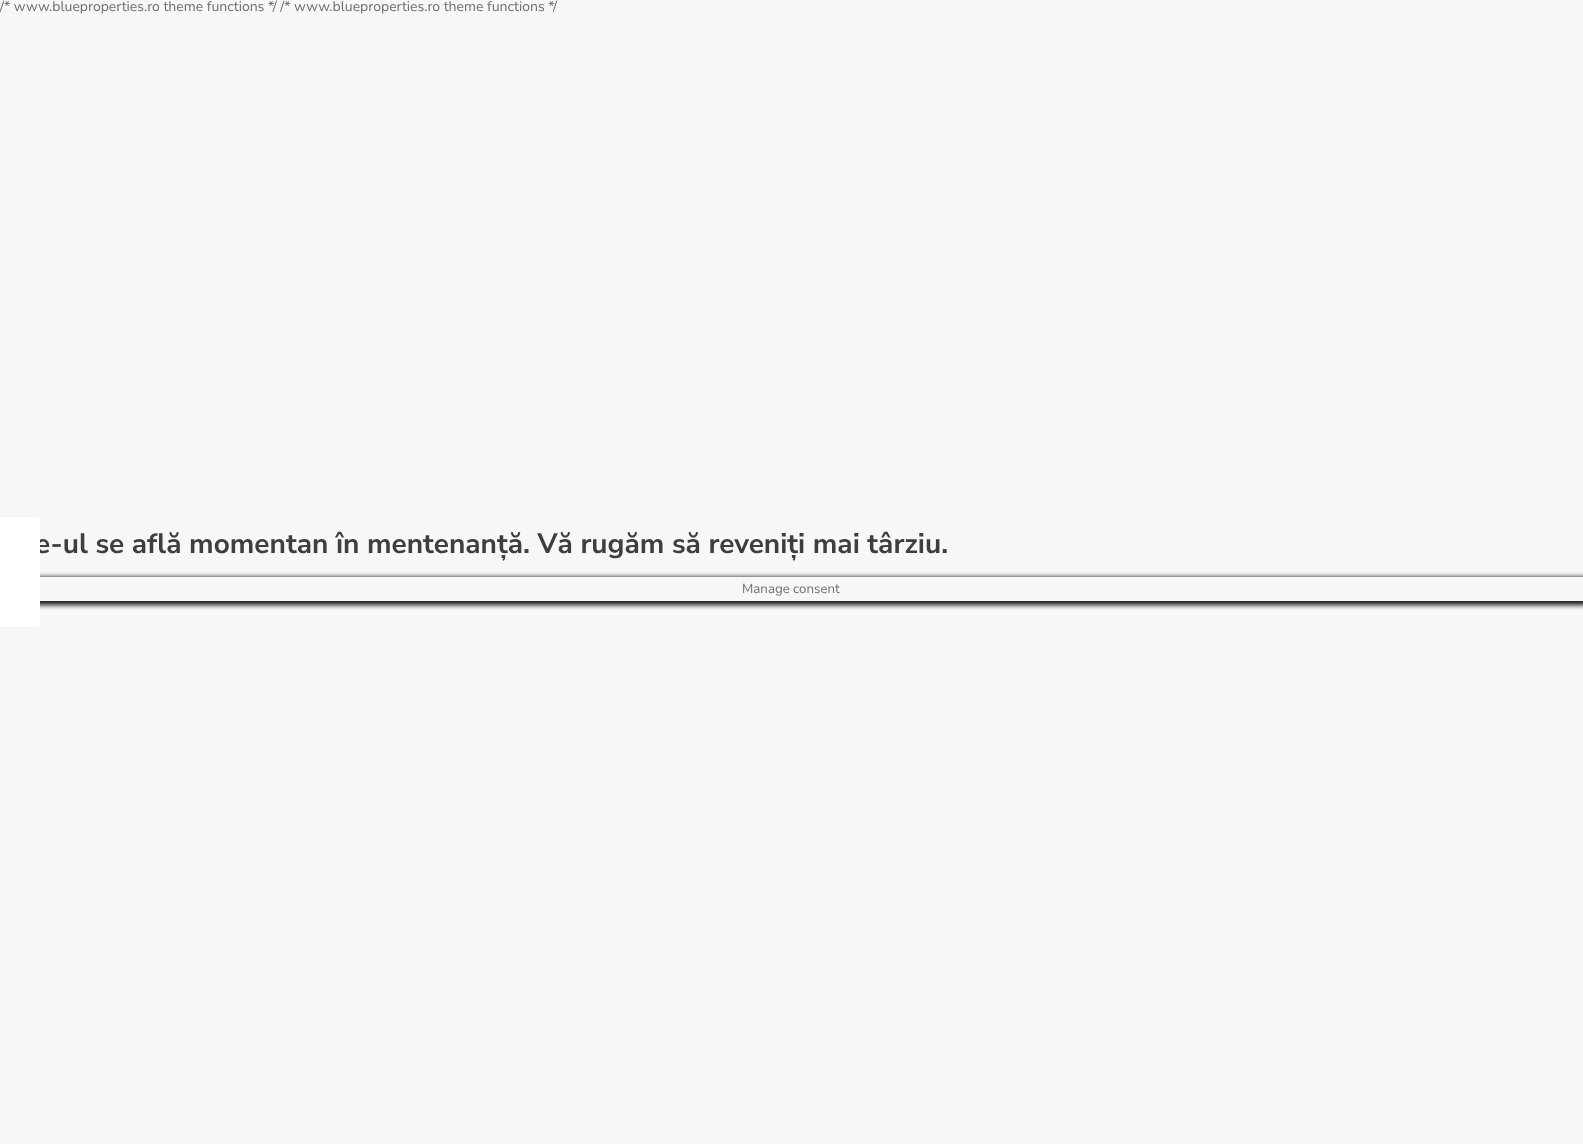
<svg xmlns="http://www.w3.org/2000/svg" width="1583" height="1144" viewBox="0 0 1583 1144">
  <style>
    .t1 { font: 14px Nunito Sans; fill: #6d6e71; }
    .t2 { font: bold 28px Nunito Sans; fill: #3d3e3f; }
    .t3 { font: 13.25px Nunito Sans; fill: #6d6e71; }
  </style>
  <defs>
    <clipPath id="clip1"><path d="M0 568H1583V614H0ZM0 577H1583V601H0Z" clip-rule="evenodd"/></clipPath>
  </defs>
  <rect width="100%" height="100%" fill="#f7f7f7"/>
  <text x="0" y="11" class="t1">/* www.blueproperties.ro theme functions */ /* www.blueproperties.ro theme functions */</text>
  <text x="35" y="553" class="t2">e-ul se află momentan în mentenanță. Vă rugăm să reveniți mai târziu.</text>
  <g clip-path="url(#clip1)">
    <rect x="0" y="577" width="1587" height="28" fill="#161616" filter="blur(2.5px)"/>
  </g>
  <path d="M-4 517H36C38 517 40 519 40 521V623C40 625 38 627 36 627H-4Z" fill="#fff"/>
  <text x="742" y="593" class="t3">Manage consent</text>
</svg>
